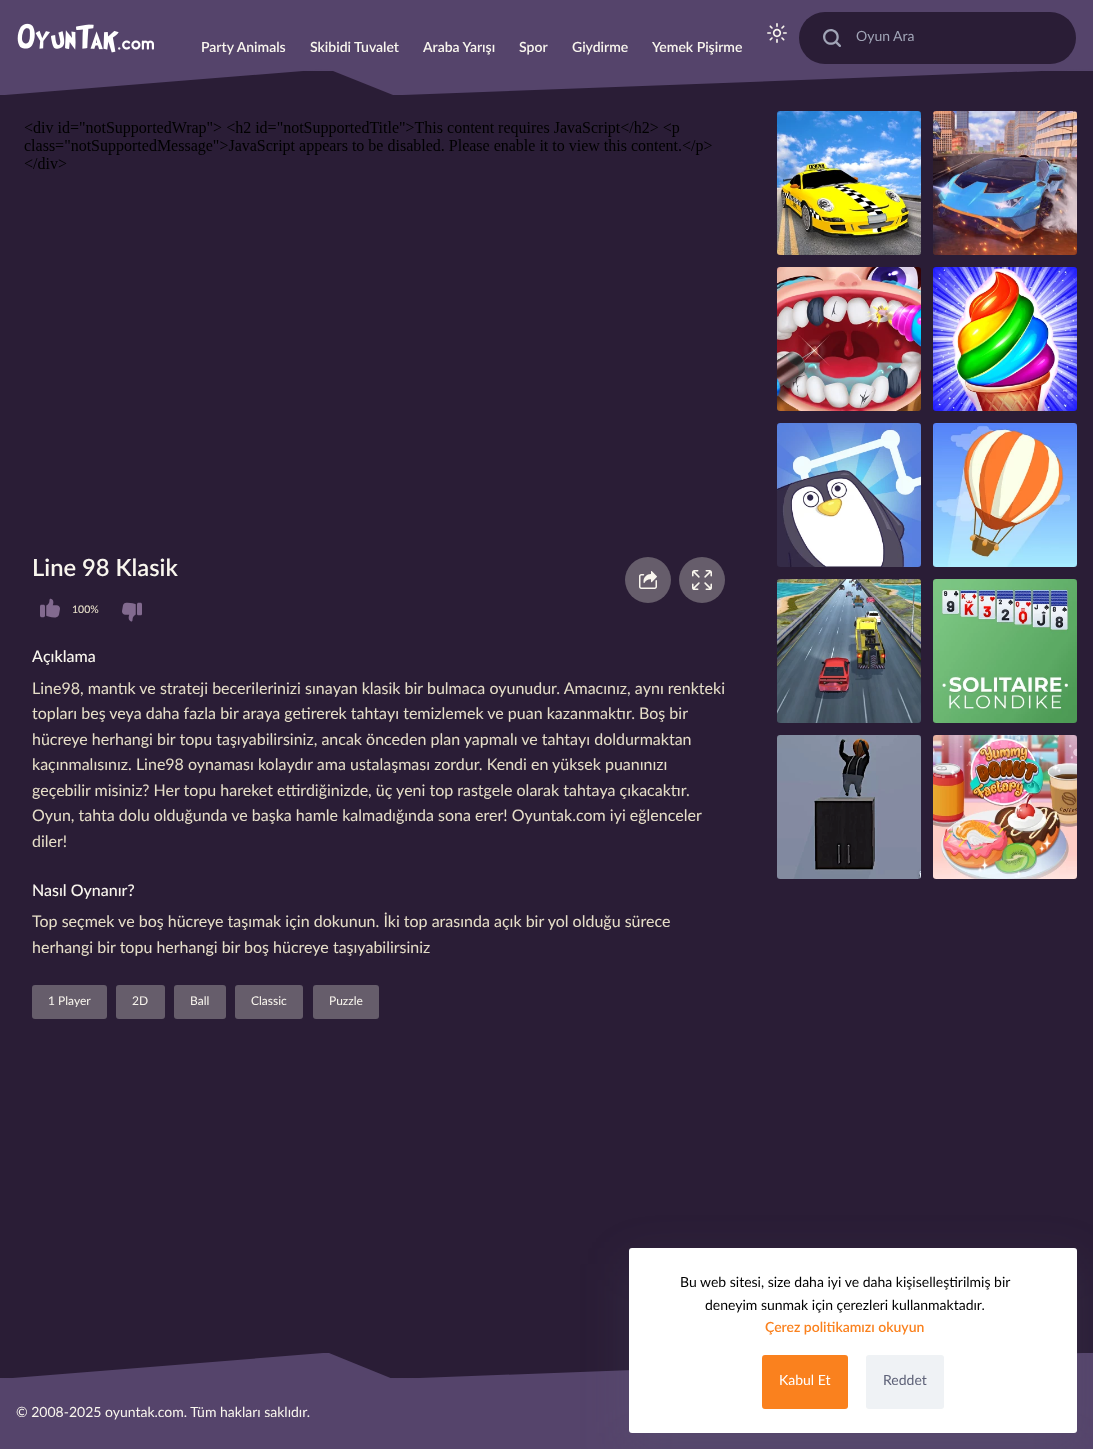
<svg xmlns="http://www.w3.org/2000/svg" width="1093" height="1449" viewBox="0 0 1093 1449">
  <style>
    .t1 { font: 14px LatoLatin; fill: #a1a5b7; }
    .t2 { font: 600 14px LatoLatin; fill: #f9f6ee; }
    .t3 { font: 600 23.75px LatoLatin; fill: #f9f6ee; }
    .t4 { font: 500 10.5px LatoLatin; fill: #e6dec8; }
    .t5 { font: 500 16px LatoLatin; fill: #f9f6ee; }
    .t6 { font: 16px LatoLatin; fill: #e6dec8; }
    .t7 { font: 12px LatoLatin; fill: #f9f6ee; }
    .t8 { font: 14px LatoLatin; fill: #000; }
    .t9 { font: 600 14px LatoLatin; fill: #fa811e; }
    .t10 { font: 14px LatoLatin; fill: #fff; }
    .t11 { font: 14px LatoLatin; fill: #5e6278; }
    .t12 { font: 14px LatoLatin; fill: #f9f6ee; }
  </style>
  <rect width="100%" height="100%" fill="#2a1d36"/>
  <rect x="0" y="0" width="1093" height="71" fill="#55446b"/>
  <image x="17" y="23" width="137" height="30" href="images/1.png"/>
  <image x="767" y="23" width="20" height="20" href="images/2.png"/>
  <rect x="799" y="12" width="277" height="52" rx="26" fill="#2a1d36"/>
  <image x="823" y="29" width="18" height="18" href="images/3.png"/>
  <text x="856" y="41" class="t1">Oyun Ara</text>
  <text x="201" y="52" class="t2">Party Animals</text>
  <text x="310" y="52" class="t2">Skibidi Tuvalet</text>
  <text x="423" y="52" class="t2">Araba Yarışı</text>
  <text x="519" y="52" class="t2">Spor</text>
  <text x="572" y="52" class="t2">Giydirme</text>
  <text x="652" y="52" class="t2">Yemek Pişirme</text>
  <path d="M0 69V95H5L328 69L393 95H403L1093 69Z" fill="#55446b"/>
  <image x="24" y="121" width="688" height="48" href="images/4.png"/>
  <text x="32" y="576" class="t3">Line 98 Klasik</text>
  <image x="40" y="598" width="20" height="20" href="images/5.png"/>
  <text x="72" y="613" class="t4">100%</text>
  <image x="122" y="602" width="20" height="20" href="images/6.png"/>
  <circle cx="648" cy="580" r="23" fill="#665d6b"/>
  <image x="639" y="571" width="18" height="18" href="images/7.png"/>
  <circle cx="702" cy="580" r="23" fill="#665d6b"/>
  <image x="692" y="570" width="20" height="20" href="images/8.png"/>
  <text x="32" y="662" class="t5">Açıklama</text>
  <text x="32" y="694" class="t6">Line98, mantık ve strateji becerilerinizi sınayan klasik bir bulmaca oyunudur. Amacınız, aynı renkteki</text>
  <text x="32" y="719" class="t6">topları beş veya daha fazla bir araya getirerek tahtayı temizlemek ve puan kazanmaktır. Boş bir</text>
  <text x="32" y="745" class="t6">hücreye herhangi bir topu taşıyabilirsiniz, ancak önceden plan yapmalı ve tahtayı doldurmaktan</text>
  <text x="32" y="770" class="t6">kaçınmalısınız. Line98 oynaması kolaydır ama ustalaşması zordur. Kendi en yüksek puanınızı</text>
  <text x="32" y="796" class="t6">geçebilir misiniz? Her topu hareket ettirdiğinizde, üç yeni top rastgele olarak tahtaya çıkacaktır.</text>
  <text x="32" y="821" class="t6">Oyun, tahta dolu olduğunda ve başka hamle kalmadığında sona erer! Oyuntak.com iyi eğlenceler</text>
  <text x="32" y="847" class="t6">diler!</text>
  <text x="32" y="896" class="t5">Nasıl Oynanır?</text>
  <text x="32" y="927" class="t6">Top seçmek ve boş hücreye taşımak için dokunun. İki top arasında açık bir yol olduğu sürece</text>
  <text x="32" y="953" class="t6">herhangi bir topu herhangi bir boş hücreye taşıyabilirsiniz</text>
  <rect x="32" y="985" width="75" height="34" rx="3" fill="#665d6b"/>
  <text x="48" y="1005" class="t7">1 Player</text>
  <rect x="116" y="985" width="49" height="34" rx="3" fill="#665d6b"/>
  <text x="132" y="1005" class="t7">2D</text>
  <rect x="174" y="985" width="52" height="34" rx="3" fill="#665d6b"/>
  <text x="190" y="1005" class="t7">Ball</text>
  <rect x="235" y="985" width="68" height="34" rx="3" fill="#665d6b"/>
  <text x="251" y="1005" class="t7">Classic</text>
  <rect x="313" y="985" width="66" height="34" rx="3" fill="#665d6b"/>
  <text x="329" y="1005" class="t7">Puzzle</text>
  <image x="777" y="111" width="144" height="144" href="images/9.png"/>
  <image x="933" y="111" width="144" height="144" href="images/10.png"/>
  <image x="777" y="267" width="144" height="144" href="images/11.png"/>
  <image x="933" y="267" width="144" height="144" href="images/12.png"/>
  <image x="777" y="423" width="144" height="144" href="images/13.png"/>
  <image x="933" y="423" width="144" height="144" href="images/14.png"/>
  <image x="777" y="579" width="144" height="144" href="images/15.png"/>
  <image x="933" y="579" width="144" height="144" href="images/16.png"/>
  <image x="777" y="735" width="144" height="144" href="images/17.png"/>
  <image x="933" y="735" width="144" height="144" href="images/18.png"/>
  <rect x="0" y="1378" width="1093" height="71" fill="#55446b"/>
  <path d="M0 1379H1093V1353H1082L393 1379L329 1353H323Z" fill="#55446b"/>
  <rect x="629" y="1264" width="448" height="185" rx="3" fill="#5e62782e" filter="blur(24px)"/>
  <rect x="629" y="1248" width="448" height="185" rx="3" fill="#fff"/>
  <text x="680" y="1287" class="t8">Bu web sitesi, size daha iyi ve daha kişiselleştirilmiş bir</text>
  <text x="705" y="1310" class="t8">deneyim sunmak için çerezleri kullanmaktadır.</text>
  <text x="765" y="1332" class="t9">Çerez politikamızı okuyun</text>
  <rect x="762" y="1355" width="86" height="54" rx="3" fill="#fa811e"/>
  <text x="779" y="1385" class="t10">Kabul Et</text>
  <rect x="866" y="1355" width="78" height="54" rx="3" fill="#eff2f5"/>
  <text x="883" y="1385" class="t11">Reddet</text>
  <text x="16" y="1417" class="t12">© 2008-2025 oyuntak.com. Tüm hakları saklıdır.</text>
</svg>
